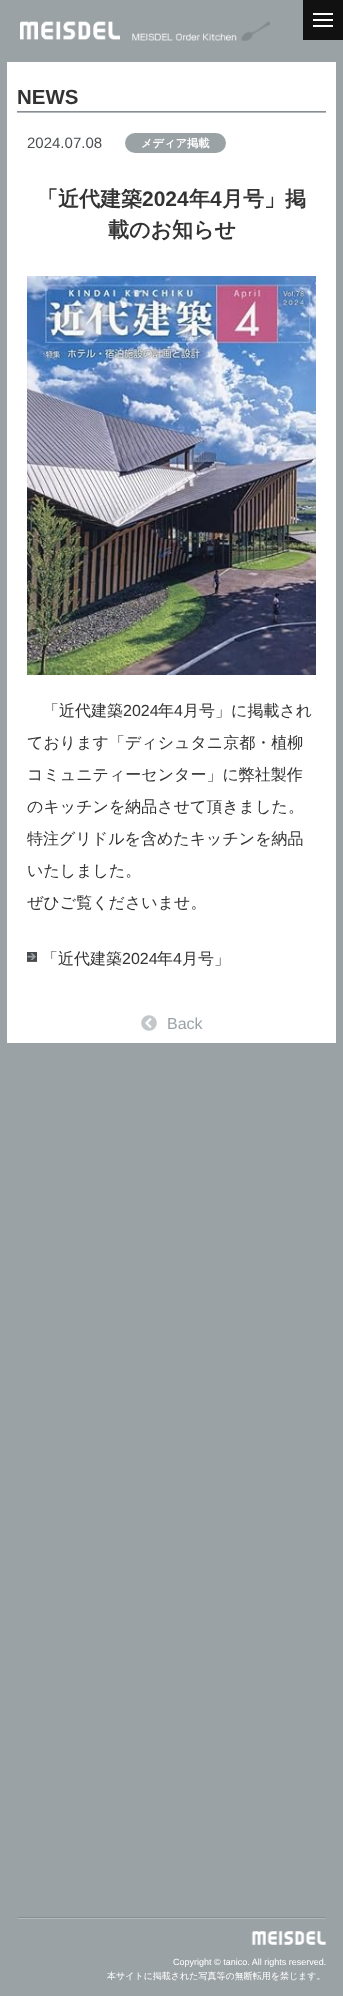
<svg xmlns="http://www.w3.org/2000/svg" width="343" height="1996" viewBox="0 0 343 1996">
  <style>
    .t1 { font: bold 20.5px Liberation Sans; fill: #333; }
    .t2 { font: 15px Liberation Sans; fill: #4a4e50; }
    .t3 { font: bold 11.25px WenQuanYi Zen Hei; fill: #fff; }
    .t4 { font: bold 21px WenQuanYi Zen Hei; fill: #333; }
    .t5 { font: bold 21px Liberation Sans; fill: #333; }
    .t6 { font: 500 16px WenQuanYi Zen Hei; fill: #333; }
    .t7 { font: 16px Liberation Sans; fill: #333; }
    .t8 { font: 16px Liberation Sans; fill: #9ba2a6; }
    .t9 { font: 9px Liberation Sans; fill: #fff; }
    .t10 { font: 500 9px WenQuanYi Zen Hei; fill: #fff; }
  </style>
  <rect width="100%" height="100%" fill="#9ba2a6"/>
  <image x="20" y="21" width="100" height="19" href="images/1.png"/>
  <image x="132" y="21" width="138" height="20" href="images/2.png"/>
  <rect x="303" y="0" width="40" height="40" fill="#111"/>
  <rect x="313" y="13" width="20" height="2" fill="#fff"/>
  <rect x="313" y="19" width="20" height="2" fill="#fff"/>
  <rect x="313" y="25" width="20" height="2" fill="#fff"/>
  <rect x="7" y="62" width="329" height="981" fill="#fff"/>
  <image x="17" y="111" width="309" height="2" href="images/3.png"/>
  <text x="17" y="104" class="t1">NEWS</text>
  <text x="27" y="148" class="t2">2024.07.08</text>
  <rect x="125" y="133" width="101" height="20" rx="10" fill="#9ba2a6"/>
  <text x="141" y="147" class="t3">メディア掲載</text>
  <text x="37" y="206" class="t4">「近代建築</text>
  <text x="142" y="206" class="t5">2024</text>
  <text x="189" y="206" class="t4">年</text>
  <text x="210" y="206" class="t5">4</text>
  <text x="222" y="206" class="t4">月号」掲</text>
  <text x="108" y="237" class="t4">載のお知らせ</text>
  <image x="27" y="276" width="289" height="399" href="images/4.png"/>
  <text x="43" y="716" class="t6">「近代建築</text>
  <text x="123" y="716" class="t7">2024</text>
  <text x="158" y="716" class="t6">年</text>
  <text x="174" y="716" class="t7">4</text>
  <text x="183" y="716" class="t6">月号」に掲載され</text>
  <text x="27" y="748" class="t6">ております「ディシュタニ京都・植柳</text>
  <text x="27" y="780" class="t6">コミュニティーセンター」に弊社製作</text>
  <text x="27" y="812" class="t6">のキッチンを納品させて頂きました。</text>
  <text x="27" y="844" class="t6">特注グリドルを含めたキッチンを納品</text>
  <text x="27" y="876" class="t6">いたしました。</text>
  <text x="27" y="908" class="t6">ぜひご覧くださいませ。</text>
  <image x="27" y="952" width="10" height="10" href="images/5.png"/>
  <text x="42" y="964" class="t6">「近代建築</text>
  <text x="122" y="964" class="t7">2024</text>
  <text x="157" y="964" class="t6">年</text>
  <text x="173" y="964" class="t7">4</text>
  <text x="182" y="964" class="t6">月号」</text>
  <image x="141" y="1015" width="16" height="16" href="images/6.png"/>
  <text x="167" y="1029" class="t8">Back</text>
  <image x="17" y="1917" width="309" height="2" href="images/7.png"/>
  <image x="251" y="1931" width="75" height="14" href="images/8.png"/>
  <text x="173" y="1965" class="t9">Copyright © tanico. All rights reserved.</text>
  <text x="107" y="1979" class="t10">本サイトに掲載された写真等の無断転用を禁じます。</text>
</svg>
